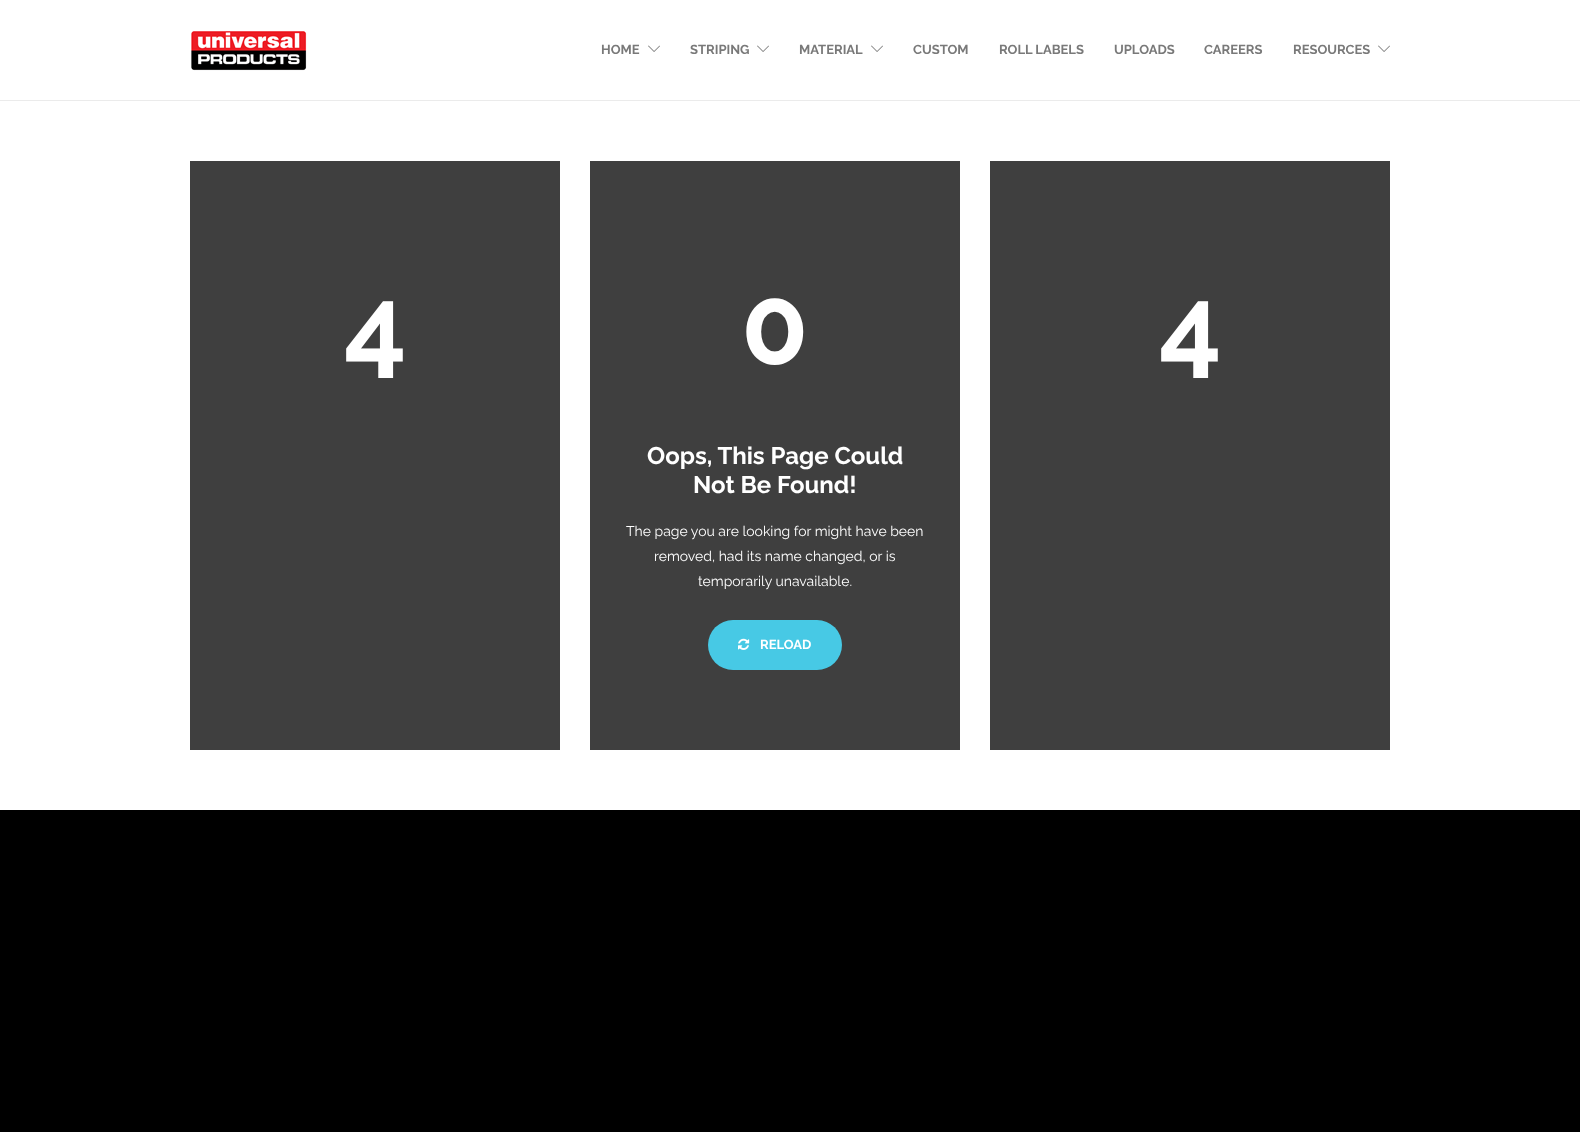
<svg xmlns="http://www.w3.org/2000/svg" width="1580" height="1132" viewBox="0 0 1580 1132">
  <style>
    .t1 { font: bold 13px Raleway; fill: #797979; }
    .t2 { font: bold 110px Raleway; fill: #fff; }
    .t3 { font: bold 24px Raleway; fill: #fff; }
    .t4 { font: 14px Raleway; fill: #fff; }
    .t5 { font: bold 13px Raleway; fill: #fff; }
  </style>
  <rect width="100%" height="100%" fill="#000"/>
  <rect x="0" y="0" width="1580" height="100" fill="#fff"/>
  <rect x="0" y="100" width="1580" height="1" fill="#ebebeb"/>
  <image x="191" y="31" width="116" height="40" href="images/1.png"/>
  <text x="601" y="54" class="t1">HOME</text>
  <image x="648" y="45" width="12" height="7" href="images/2.png"/>
  <text x="690" y="54" class="t1">STRIPING</text>
  <image x="757" y="45" width="12" height="7" href="images/2.png"/>
  <text x="799" y="54" class="t1">MATERIAL</text>
  <image x="871" y="45" width="12" height="7" href="images/2.png"/>
  <text x="913" y="54" class="t1">CUSTOM</text>
  <text x="999" y="54" class="t1">ROLL LABELS</text>
  <text x="1114" y="54" class="t1">UPLOADS</text>
  <text x="1204" y="54" class="t1">CAREERS</text>
  <text x="1293" y="54" class="t1">RESOURCES</text>
  <image x="1378" y="45" width="12" height="7" href="images/2.png"/>
  <rect x="0" y="101" width="1580" height="709" fill="#fff"/>
  <rect x="190" y="161" width="1200" height="589" fill="#3f3f3f"/>
  <rect x="560" y="161" width="30" height="589" fill="#fff"/>
  <text x="344" y="364" class="t2">4</text>
  <rect x="960" y="161" width="30" height="589" fill="#fff"/>
  <text x="741" y="364" class="t2">0</text>
  <text x="647" y="464" class="t3">Oops, This Page Could</text>
  <text x="693" y="493" class="t3">Not Be Found!</text>
  <text x="626" y="536" class="t4">The page you are looking for might have been</text>
  <text x="654" y="561" class="t4">removed, had its name changed, or is</text>
  <text x="698" y="586" class="t4">temporarily unavailable.</text>
  <rect x="708" y="620" width="134" height="50" rx="25" fill="#47c9e5"/>
  <image x="738" y="638" width="12" height="12" href="images/3.png"/>
  <text x="760" y="649" class="t5">RELOAD</text>
  <text x="1159" y="364" class="t2">4</text>
</svg>
